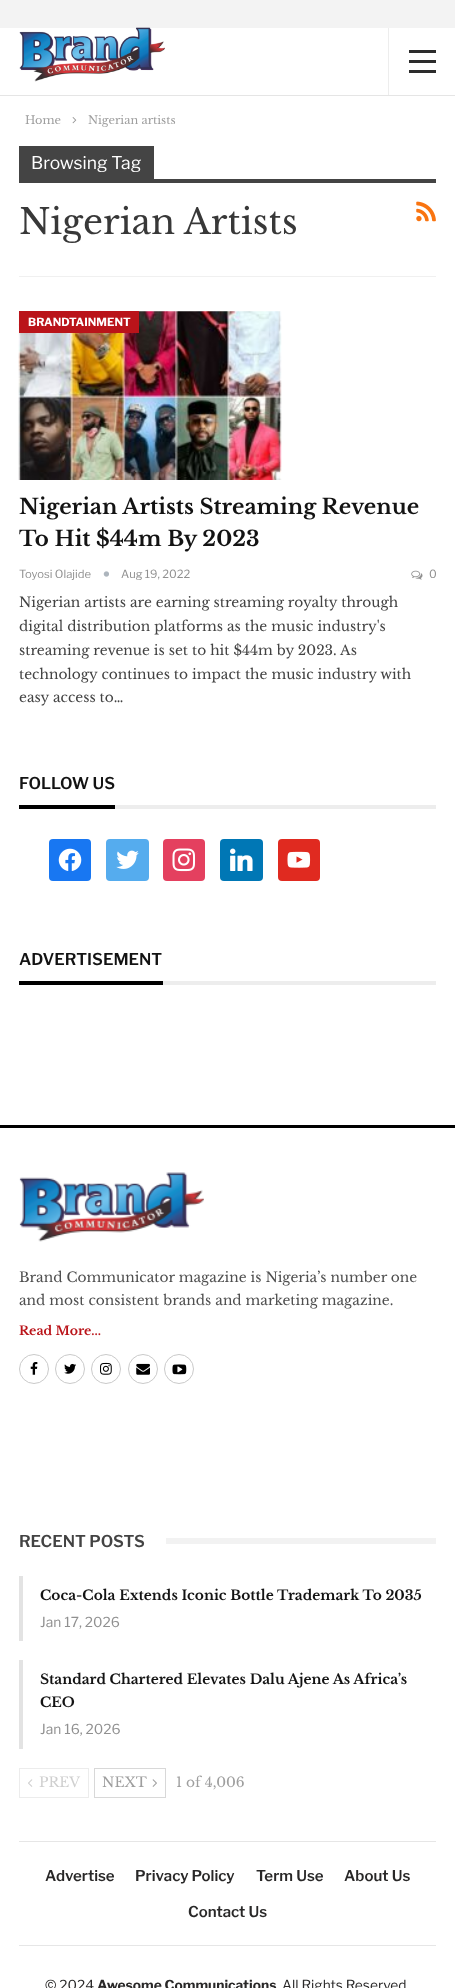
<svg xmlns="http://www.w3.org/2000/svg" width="455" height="1988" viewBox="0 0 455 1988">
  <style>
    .t1 { font: 11.25px Libre Baskerville; fill: #9e9e9e; }
    .t2 { font: 17.5px Libre Franklin; fill: #fff; }
    .t3 { font: 35px Libre Baskerville; fill: #383838; }
    .t4 { font: bold 11.25px Libre Franklin; fill: #fff; }
    .t5 { font: bold 21.25px Libre Baskerville; fill: #131313; }
    .t6 { font: 11.25px Libre Franklin; fill: #909090; }
    .t7 { font: 13.75px Libre Baskerville; fill: #434343; }
    .t8 { font: 600 16.25px Libre Franklin; fill: #131313; }
    .t9 { font: 13.75px Libre Baskerville; fill: #4f4f4f; }
    .t10 { font: bold 12.5px Libre Baskerville; fill: #ba141a; }
    .t11 { font: 600 16.25px Libre Franklin; fill: #434343; }
    .t12 { font: bold 13.75px Libre Baskerville; fill: #131313; }
    .t13 { font: 13.75px Libre Franklin; fill: #909090; }
    .t14 { font: 13.75px Libre Baskerville; fill: #cfcfcf; }
    .t15 { font: 13.75px Libre Baskerville; fill: #9e9e9e; }
    .t16 { font: 600 15px Libre Franklin; fill: #292828; }
    .t17 { font: 13.75px Libre Franklin; fill: #292828; }
    .t18 { font: bold 13.75px Libre Franklin; fill: #292828; }
  </style>
  <rect width="100%" height="100%" fill="#f3f3f3"/>
  <rect x="0" y="28" width="455" height="67" fill="#fff"/>
  <rect x="0" y="95" width="455" height="1" fill="#e5e5e5"/>
  <image x="19" y="27" width="146" height="55" href="images/1.png"/>
  <rect x="388" y="28" width="1" height="67" fill="#ededed"/>
  <rect x="409" y="60" width="27" height="3" fill="#2c2c2c"/>
  <rect x="409" y="50" width="27" height="3" fill="#2c2c2c"/>
  <rect x="409" y="70" width="27" height="3" fill="#2c2c2c"/>
  <rect x="0" y="96" width="455" height="1892" fill="#fff"/>
  <text x="25" y="124" class="t1">Home</text>
  <image x="72" y="117" width="5" height="7" href="images/2.png"/>
  <text x="88" y="124" class="t1">Nigerian artists</text>
  <rect x="19" y="276" width="417" height="1" fill="#f0f0f0"/>
  <rect x="19" y="146" width="135" height="33" fill="#444"/>
  <text x="31" y="169" class="t2">Browsing Tag</text>
  <rect x="19" y="179" width="417" height="4" fill="#444"/>
  <text x="19" y="234" class="t3">Nigerian Artists</text>
  <image x="416" y="201" width="20" height="21" href="images/3.png"/>
  <image x="18" y="311" width="264" height="169" href="images/4.png"/>
  <rect x="19" y="311" width="120" height="22" fill="#ba141a"/>
  <text x="28" y="326" class="t4">BRANDTAINMENT</text>
  <text x="19" y="514" class="t5">Nigerian Artists Streaming Revenue</text>
  <text x="19" y="546" class="t5">To Hit $44m By 2023</text>
  <text x="19" y="578" class="t6">Toyosi Olajide</text>
  <image x="103" y="571" width="6" height="6" href="images/5.png"/>
  <text x="121" y="578" class="t6">Aug 19, 2022</text>
  <image x="411" y="570" width="12" height="10" href="images/6.png"/>
  <text x="429" y="578" class="t6">0</text>
  <text x="19" y="607" class="t7">Nigerian artists are earning streaming royalty through</text>
  <text x="19" y="631" class="t7">digital distribution platforms as the music industry's</text>
  <text x="19" y="655" class="t7">streaming revenue is set to hit $44m by 2023. As</text>
  <text x="19" y="679" class="t7">technology continues to impact the music industry with</text>
  <text x="19" y="702" class="t7">easy access to…</text>
  <text x="19" y="789" class="t8">FOLLOW US</text>
  <rect x="19" y="805" width="96" height="4" fill="#000"/>
  <rect x="115" y="805" width="321" height="4" fill="#ededed"/>
  <rect x="49" y="839" width="42" height="42" rx="4" fill="#1877f2"/>
  <image x="58" y="848" width="24" height="23" href="images/7.png"/>
  <rect x="106" y="839" width="43" height="42" rx="4" fill="#55acee"/>
  <image x="116" y="850" width="23" height="19" href="images/8.png"/>
  <rect x="163" y="839" width="42" height="42" rx="4" fill="#e4405f"/>
  <image x="172" y="848" width="24" height="24" href="images/9.png"/>
  <rect x="220" y="839" width="43" height="42" rx="4" fill="#0077b5"/>
  <image x="230" y="848" width="23" height="23" href="images/10.png"/>
  <rect x="278" y="839" width="42" height="42" rx="4" fill="#e02a20"/>
  <image x="287" y="851" width="24" height="17" href="images/11.png"/>
  <text x="19" y="965" class="t8">ADVERTISEMENT</text>
  <rect x="19" y="981" width="144" height="4" fill="#000"/>
  <rect x="163" y="981" width="273" height="4" fill="#ededed"/>
  <rect x="0" y="1125" width="455" height="3" fill="#000"/>
  <image x="19" y="1172" width="185" height="70" href="images/12.png"/>
  <text x="19" y="1282" class="t9">Brand Communicator magazine is Nigeria’s number one</text>
  <text x="19" y="1305" class="t9">and most consistent brands and marketing magazine.</text>
  <text x="19" y="1335" class="t10">Read More...</text>
  <circle cx="34" cy="1369" r="14.5" fill="none" stroke="#cacaca"/>
  <image x="30" y="1362" width="8" height="13" href="images/13.png"/>
  <circle cx="70" cy="1369" r="14.5" fill="none" stroke="#cacaca"/>
  <image x="64" y="1363" width="12" height="11" href="images/14.png"/>
  <circle cx="106" cy="1369" r="14.5" fill="none" stroke="#cacaca"/>
  <image x="100" y="1362" width="12" height="13" href="images/15.png"/>
  <circle cx="143" cy="1369" r="14.5" fill="none" stroke="#cacaca"/>
  <image x="136" y="1363" width="14" height="12" href="images/16.png"/>
  <circle cx="179" cy="1369" r="14.5" fill="none" stroke="#cacaca"/>
  <image x="172" y="1364" width="15" height="11" href="images/17.png"/>
  <text x="19" y="1547" class="t11">RECENT POSTS</text>
  <rect x="166" y="1538" width="270" height="6" fill="#f2f2f2"/>
  <rect x="19" y="1576" width="4" height="65" fill="#e3e3e3"/>
  <text x="40" y="1600" class="t12">Coca-Cola Extends Iconic Bottle Trademark To 2035</text>
  <text x="40" y="1627" class="t13">Jan 17, 2026</text>
  <rect x="19" y="1660" width="4" height="89" fill="#e3e3e3"/>
  <text x="40" y="1684" class="t12">Standard Chartered Elevates Dalu Ajene As Africa’s</text>
  <text x="40" y="1707" class="t12">CEO</text>
  <text x="40" y="1734" class="t13">Jan 16, 2026</text>
  <rect x="19.5" y="1768.5" width="69" height="29" fill="none" stroke="#ececec"/>
  <image x="28" y="1779" width="5" height="8" href="images/18.png"/>
  <text x="39" y="1787" class="t14">PREV</text>
  <rect x="94.5" y="1768.5" width="71" height="29" fill="none" stroke="#d8d8d8"/>
  <text x="102" y="1787" class="t15">NEXT</text>
  <image x="152" y="1779" width="5" height="8" href="images/19.png"/>
  <text x="176" y="1787" class="t15">1 of 4,006</text>
  <rect x="19" y="1841" width="417" height="1" fill="#e6e6e6"/>
  <rect x="19" y="1945" width="417" height="1" fill="#e6e6e6"/>
  <text x="45" y="1881" class="t16">Advertise</text>
  <text x="135" y="1881" class="t16">Privacy Policy</text>
  <text x="256" y="1881" class="t16">Term Use</text>
  <text x="344" y="1881" class="t16">About Us</text>
  <text x="188" y="1917" class="t16">Contact Us</text>
  <text x="45" y="1990" class="t17">© 2024</text>
  <text x="97" y="1990" class="t18">Awesome Communications</text>
  <text x="282" y="1990" class="t17">All Rights Reserved</text>
</svg>
